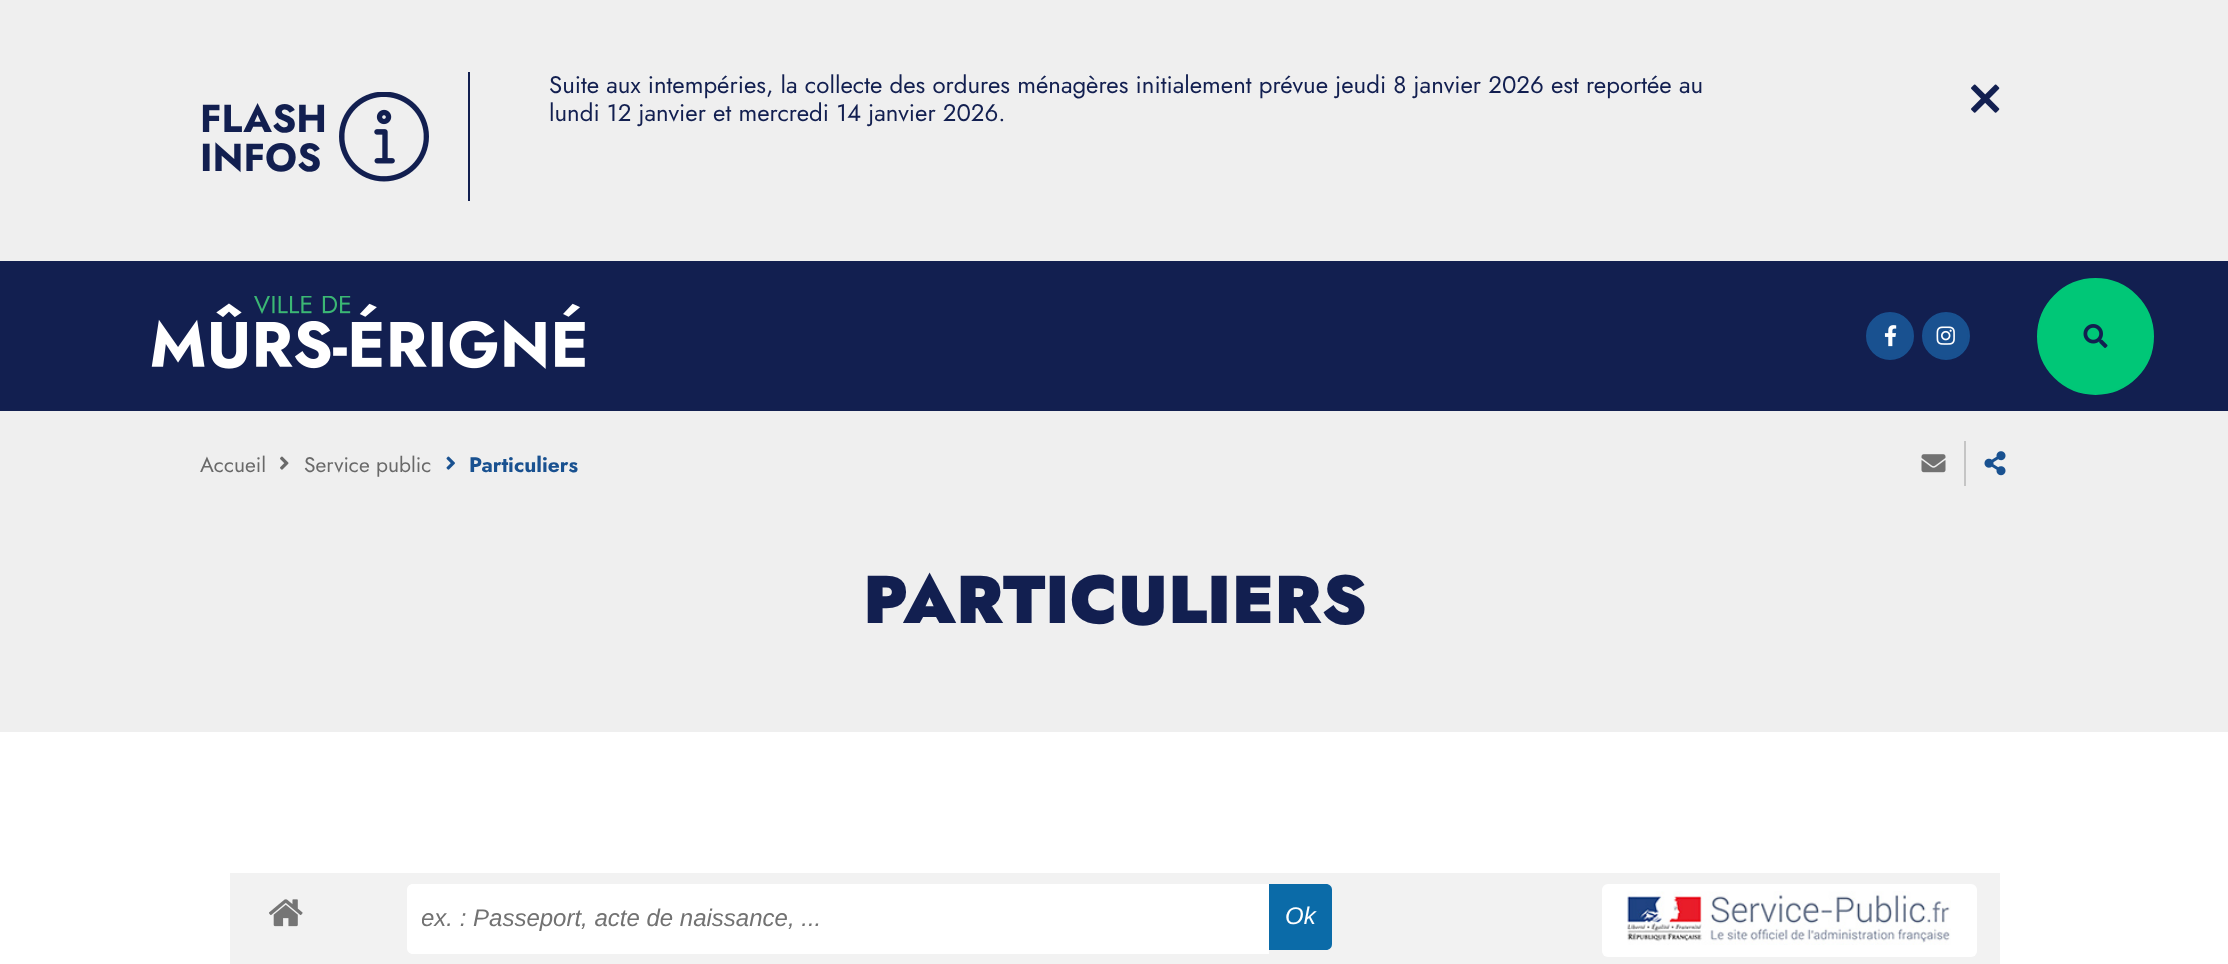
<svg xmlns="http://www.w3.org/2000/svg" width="2228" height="964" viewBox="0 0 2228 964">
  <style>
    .t1 { font: bold 39px Jost; fill: #121f50; }
    .t2 { font: 24px Jost; fill: #121f50; }
    .t3 { font: 21px Jost; fill: #696969; }
    .t4 { font: bold 21px Jost; fill: #195190; }
    .t5 { font: 900 67.5px Jost; fill: #121f50; }
    .t6 { font: italic 24px Liberation Sans; fill: #727272; }
    .t7 { font: italic 24px Liberation Sans; fill: #fff; }
  </style>
  <defs>
    <clipPath id="clip1"><rect x="422" y="905" width="810" height="27"/></clipPath>
  </defs>
  <rect width="100%" height="100%" fill="#fff"/>
  <rect x="0" y="0" width="2228" height="261" fill="#efefef"/>
  <text x="200" y="132" class="t1">FLASH</text>
  <text x="200" y="171" class="t1">INFOS</text>
  <image x="339" y="92" width="90" height="90" href="images/1.png"/>
  <rect x="468" y="72" width="2" height="129" fill="#121f50"/>
  <text x="549" y="93" class="t2">Suite aux intempéries, la collecte des ordures ménagères initialement prévue jeudi 8 janvier 2026 est reportée au</text>
  <text x="549" y="121" class="t2">lundi 12 janvier et mercredi 14 janvier 2026.</text>
  <image x="1971" y="84" width="29" height="29" href="images/2.png"/>
  <rect x="0" y="261" width="2228" height="150" fill="#121f50"/>
  <image x="151" y="296" width="434" height="73" href="images/3.png"/>
  <circle cx="1890" cy="336" r="23" fill="#195190" stroke="#195190" stroke-width="2"/>
  <image x="1884" y="325" width="13" height="22" href="images/4.png"/>
  <circle cx="1946" cy="336" r="23" fill="#195190" stroke="#195190" stroke-width="2"/>
  <image x="1936" y="326" width="19" height="19" href="images/5.png"/>
  <circle cx="2095.5" cy="336.5" r="57.5" fill="#00c777" stroke="#00c777" stroke-width="2"/>
  <image x="2083" y="324" width="25" height="24" href="images/6.png"/>
  <rect x="0" y="411" width="2228" height="321" fill="#efefef"/>
  <text x="200" y="472" class="t3">Accueil</text>
  <image x="280" y="456" width="9" height="14" href="images/7.png"/>
  <text x="304" y="472" class="t3">Service public</text>
  <image x="446" y="456" width="9" height="14" href="images/8.png"/>
  <text x="469" y="472" class="t4">Particuliers</text>
  <image x="1921" y="454" width="25" height="19" href="images/9.png"/>
  <rect x="1964" y="441" width="2" height="45" fill="#c5c5c5"/>
  <image x="1984" y="451" width="22" height="25" href="images/10.png"/>
  <text x="863" y="623" class="t5">PARTICULIERS</text>
  <rect x="230" y="873" width="1770" height="91" fill="#f2f2f2"/>
  <image x="269" y="899" width="34" height="28" href="images/11.png"/>
  <path d="M413 884H1269V954H413C409.5 954 407 951.5 407 948V890C407 886.5 409.5 884 413 884Z" fill="#fff"/>
  <g clip-path="url(#clip1)">
    <text x="421" y="926" class="t6">ex. : Passeport, acte de naissance, ...</text>
  </g>
  <path d="M1269 884H1326C1329.5 884 1332 886.5 1332 890V944C1332 947.5 1329.5 950 1326 950H1269Z" fill="#0b6ba8"/>
  <text x="1285" y="924" class="t7">Ok</text>
  <rect x="1602" y="884" width="375" height="73" rx="6" fill="#fff"/>
  <image x="1627" y="891" width="324" height="54" href="images/12.png"/>
</svg>
